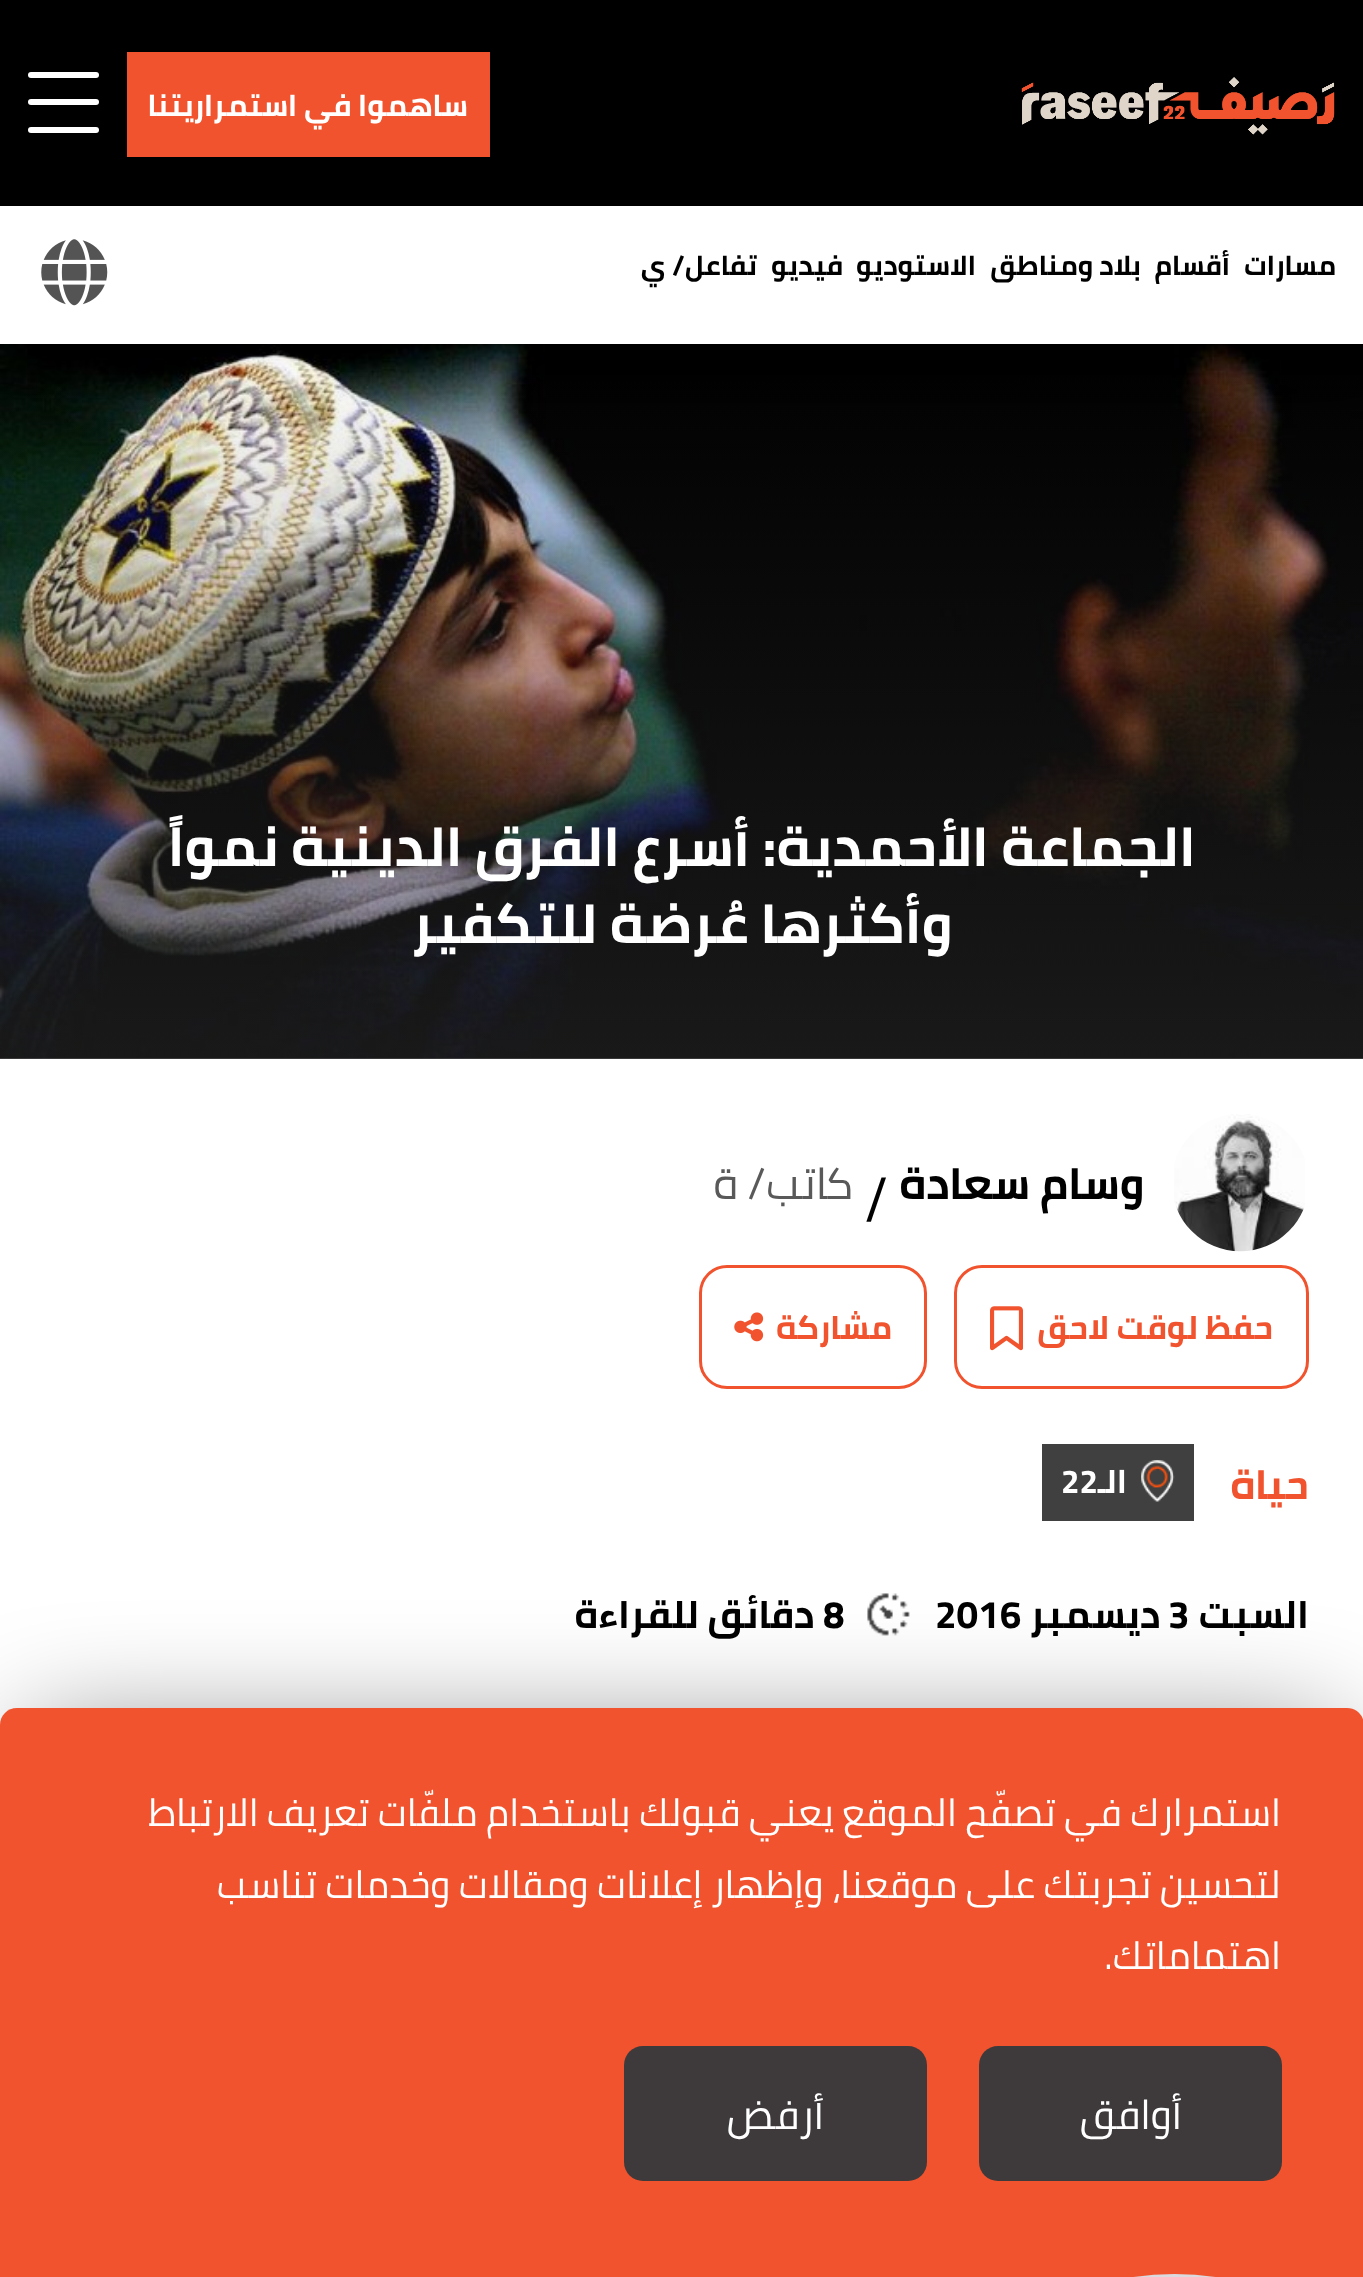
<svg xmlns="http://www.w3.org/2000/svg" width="1363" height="2277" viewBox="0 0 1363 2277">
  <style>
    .t1 { font: bold 30.25px Cairo; direction: rtl; fill: #fff; }
    .t2 { font: bold 27.5px Cairo; direction: rtl; fill: #000; }
    .t3 { font: bold 55px Cairo; direction: rtl; fill: #fff; }
    .t4 { font: bold 44px Cairo; direction: rtl; fill: #000; }
    .t5 { font: bold 66px Liberation Serif; fill: #000; }
    .t6 { font: 44px Cairo; direction: rtl; fill: #595959; }
    .t7 { font: bold 33px Cairo; direction: rtl; fill: #f0532d; }
    .t8 { font: bold 41px Cairo; direction: rtl; fill: #f0532d; }
    .t9 { font: bold 33px Cairo; direction: rtl; fill: #fff; }
    .t10 { font: bold 33px Cairo; fill: #fff; }
    .t11 { font: bold 38.5px Cairo; direction: rtl; fill: #000; }
    .t12 { font: bold 38.5px Cairo; fill: #000; }
    .t13 { font: 38.5px Cairo; direction: rtl; fill: #fff; }
    .t14 { font: 41px Cairo; direction: rtl; fill: #fff; }
  </style>
  <defs>
    <linearGradient id="g1" gradientUnits="userSpaceOnUse" x1="0" y1="344" x2="0" y2="1059"><stop offset="0" stop-color="#313131" stop-opacity="0"/><stop offset="1" stop-color="#313131" stop-opacity="0.5"/></linearGradient>
  </defs>
  <rect width="100%" height="100%" fill="#fff"/>
  <image x="0" y="344" width="1363" height="715" href="images/3.png"/>
  <rect x="0" y="375" width="1363" height="684" fill="url(#g1)"/>
  <rect x="0" y="8" width="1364" height="344" fill="#00000014" filter="blur(27.5px)"/>
  <rect x="0" y="0" width="1363" height="206" fill="#000"/>
  <image x="1021" y="77" width="314" height="58" href="images/1.png"/>
  <rect x="127" y="52" width="363" height="105" fill="#f0532d"/>
  <text x="468" y="116" class="t1">ساهموا في استمراريتنا</text>
  <rect x="28" y="99" width="71" height="6" rx="3" fill="#fff"/>
  <rect x="28" y="72" width="71" height="6" rx="3" fill="#fff"/>
  <rect x="28" y="127" width="71" height="6" rx="3" fill="#fff"/>
  <rect x="0" y="206" width="1363" height="138" fill="#fff"/>
  <text x="1336" y="275" class="t2">مسارات</text>
  <text x="1230" y="275" class="t2">أقسام</text>
  <text x="1141" y="275" class="t2">بلاد ومناطق</text>
  <text x="976" y="275" class="t2">الاستوديو</text>
  <text x="843" y="275" class="t2">فيديو</text>
  <text x="757" y="275" class="t2">تفاعل/ ي</text>
  <image x="41" y="239" width="67" height="67" href="images/2.png"/>
  <text x="1196" y="866" class="t3">الجماعة الأحمدية: أسرع الفرق الدينية نمواً</text>
  <text x="952" y="943" class="t3">وأكثرها عُرضة للتكفير</text>
  <image x="1174" y="1114" width="131" height="138" href="images/4.png"/>
  <text x="1144" y="1199" class="t4">وسام سعادة</text>
  <text x="867" y="1221" class="t5">/</text>
  <text x="853" y="1199" class="t6">كاتب/ ة</text>
  <rect x="955.5" y="1266.5" width="352" height="121" rx="26.5" fill="none" stroke="#f0532d" stroke-width="3"/>
  <text x="1273" y="1339" class="t7">حفظ لوقت لاحق</text>
  <image x="990" y="1306" width="33" height="45" href="images/5.png"/>
  <rect x="700.5" y="1266.5" width="225" height="121" rx="26.5" fill="none" stroke="#f0532d" stroke-width="3"/>
  <text x="892" y="1339" class="t7">مشاركة</text>
  <image x="734" y="1312" width="30" height="30" href="images/6.png"/>
  <text x="1309" y="1499" class="t8">حياة</text>
  <rect x="1042" y="1444" width="152" height="77" fill="#404040"/>
  <image x="1141" y="1460" width="34" height="42" href="images/7.png"/>
  <text x="1127" y="1493" class="t9">الـ</text>
  <text x="1061" y="1493" class="t10">22</text>
  <text x="1309" y="1628" class="t11">السبت</text>
  <text x="1168" y="1628" class="t12">3</text>
  <text x="1160" y="1628" class="t11">ديسمبر</text>
  <text x="935" y="1628" class="t12">2016</text>
  <image x="867" y="1593" width="43" height="43" href="images/8.png"/>
  <text x="823" y="1628" class="t12">8</text>
  <text x="814" y="1628" class="t11">دقائق للقراءة</text>
  <rect x="28" y="1735" width="1309" height="515" fill="#00000080" filter="blur(59px)"/>
  <path d="M17 1708H1347C1356.5 1708 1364 1715.5 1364 1725V2277H0V1725C0 1715.5 7.5 1708 17 1708Z" fill="#f0532d"/>
  <text x="1281" y="1826" class="t13">استمرارك في تصفّح الموقع يعني قبولك باستخدام ملفّات تعريف الارتباط</text>
  <text x="1281" y="1898" class="t13">لتحسين تجربتك على موقعنا، وإظهار إعلانات ومقالات وخدمات تناسب</text>
  <text x="1281" y="1969" class="t13">اهتماماتك.</text>
  <rect x="979" y="2046" width="303" height="135" rx="19" fill="#3e3a3b"/>
  <text x="1182" y="2129" class="t14">أوافق</text>
  <rect x="624" y="2046" width="303" height="135" rx="19" fill="#3e3a3b"/>
  <text x="824" y="2129" class="t14">أرفض</text>
  <rect x="1027.5" y="2275.5" width="294" height="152" rx="147" fill="none" stroke="#dbdade" stroke-width="3"/>
</svg>
